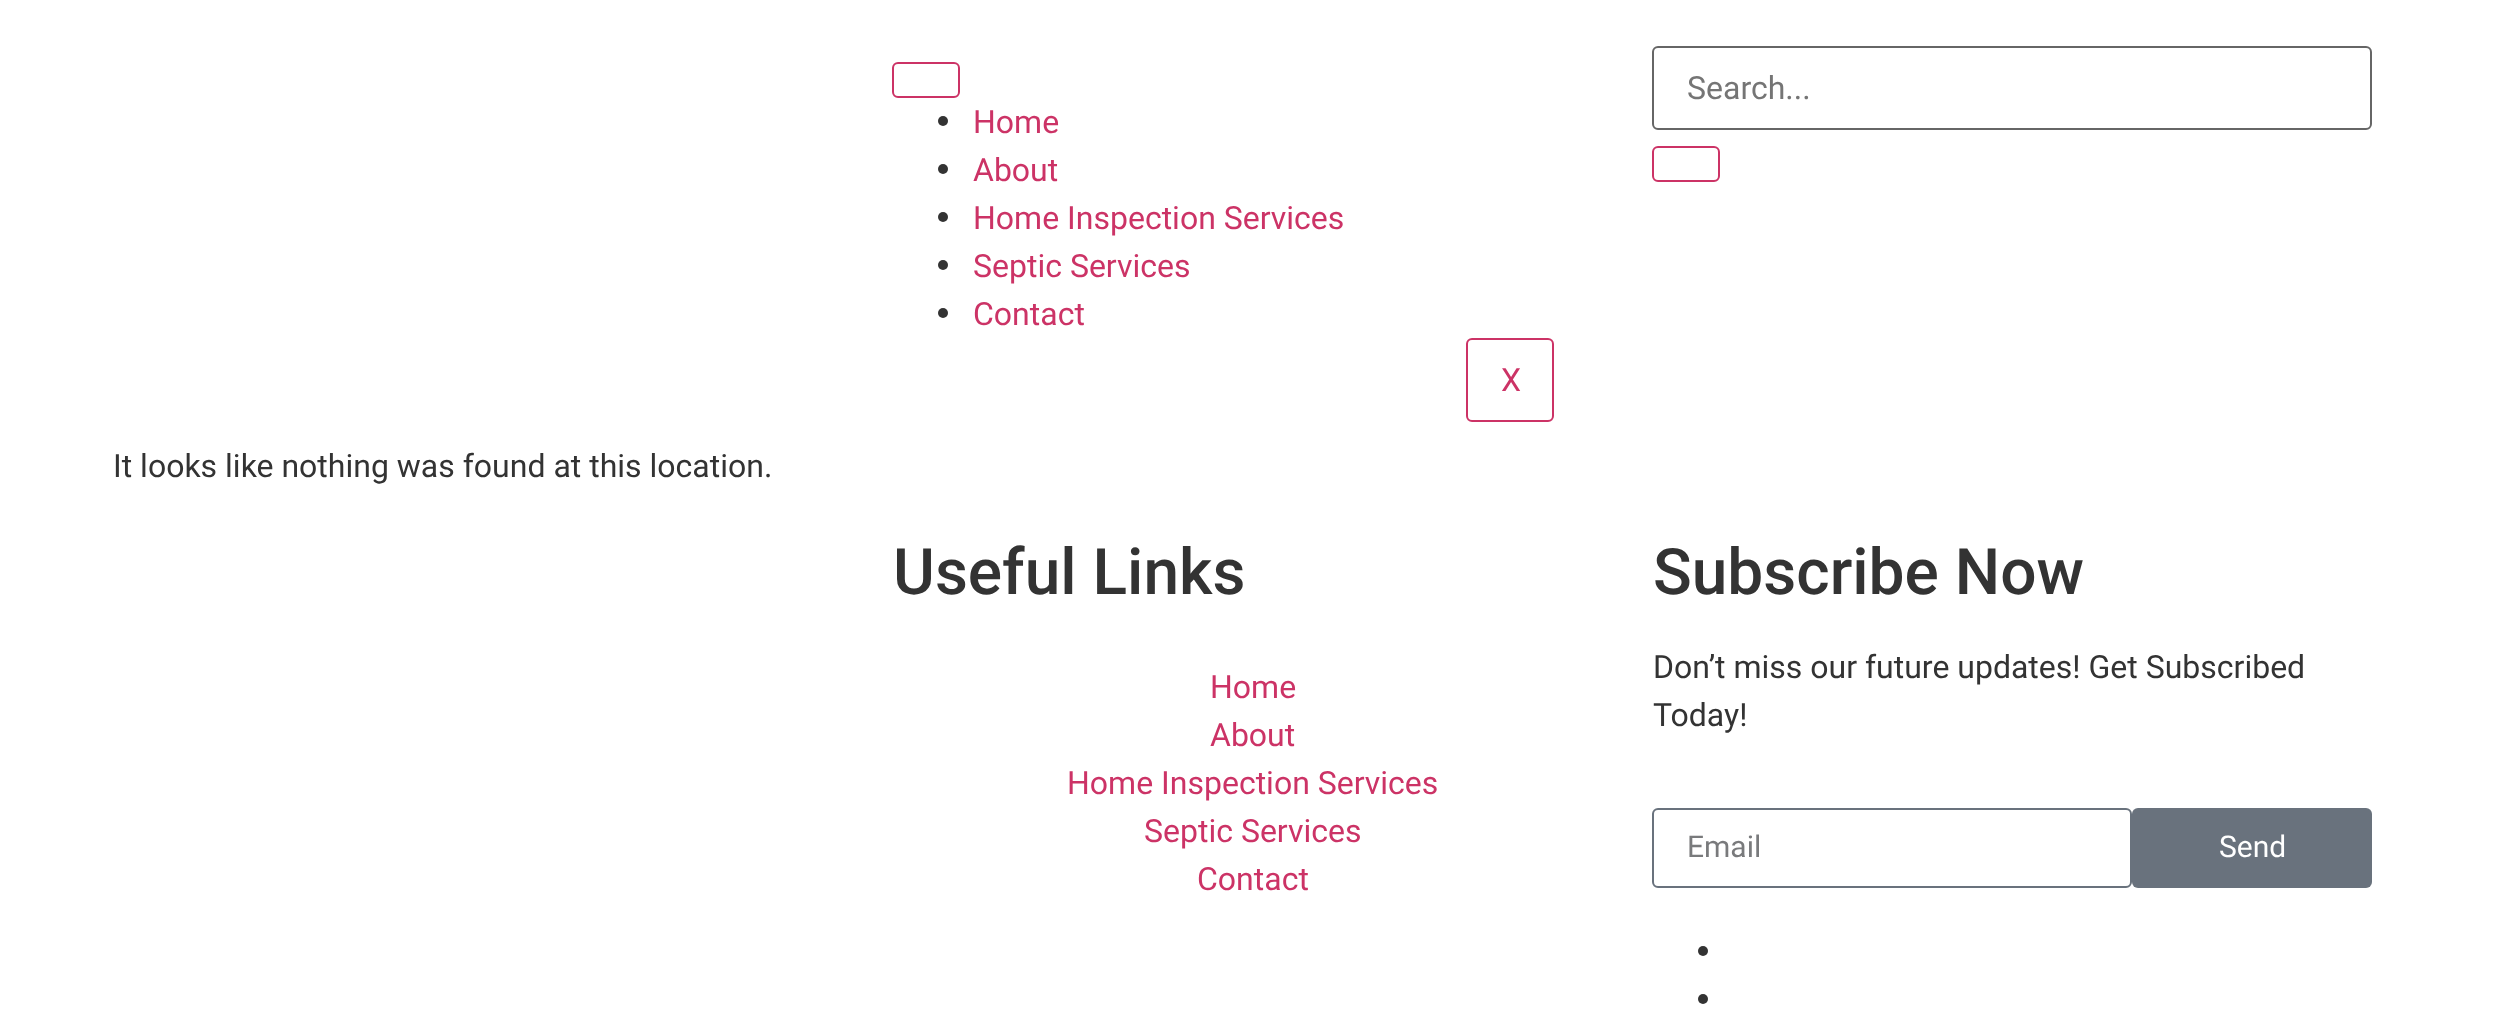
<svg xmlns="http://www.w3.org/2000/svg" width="2506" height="1014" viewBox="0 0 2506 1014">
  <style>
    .t1 { font: 32px Roboto; fill: #757575; }
    .t2 { font: 32px Roboto; fill: #c36; }
    .t3 { font: 32px Roboto; fill: #333; }
    .t4 { font: 500 64px Roboto; fill: #333; }
    .t5 { font: 30px Roboto; fill: #797a7c; }
    .t6 { font: 30px Roboto; fill: #fff; }
  </style>
  <rect width="100%" height="100%" fill="#fff"/>
  <rect x="1653" y="47" width="718" height="82" rx="5" fill="none" stroke="#666" stroke-width="2"/>
  <text x="1687" y="99" class="t1">Search...</text>
  <rect x="1653" y="147" width="66" height="34" rx="5" fill="none" stroke="#c36" stroke-width="2"/>
  <rect x="893" y="63" width="66" height="34" rx="5" fill="none" stroke="#c36" stroke-width="2"/>
  <circle cx="943" cy="121" r="5" fill="#333"/>
  <text x="973" y="133" class="t2">Home</text>
  <circle cx="943" cy="169" r="5" fill="#333"/>
  <text x="973" y="181" class="t2">About</text>
  <circle cx="943" cy="217" r="5" fill="#333"/>
  <text x="973" y="229" class="t2">Home Inspection Services</text>
  <circle cx="943" cy="265" r="5" fill="#333"/>
  <text x="973" y="277" class="t2">Septic Services</text>
  <circle cx="943" cy="313" r="5" fill="#333"/>
  <text x="973" y="325" class="t2">Contact</text>
  <rect x="1467" y="339" width="86" height="82" rx="5" fill="none" stroke="#c36" stroke-width="2"/>
  <text x="1501" y="391" class="t2">X</text>
  <text x="113" y="477" class="t3">It looks like nothing was found at this location.</text>
  <text x="893" y="594" class="t4">Useful Links</text>
  <text x="1210" y="698" class="t2">Home</text>
  <text x="1210" y="746" class="t2">About</text>
  <text x="1067" y="794" class="t2">Home Inspection Services</text>
  <text x="1144" y="842" class="t2">Septic Services</text>
  <text x="1197" y="890" class="t2">Contact</text>
  <text x="1653" y="594" class="t4">Subscribe Now</text>
  <text x="1653" y="678" class="t3">Don’t miss our future updates! Get Subscribed</text>
  <text x="1653" y="726" class="t3">Today!</text>
  <rect x="1653" y="809" width="478" height="78" rx="5" fill="none" stroke="#69727d" stroke-width="2"/>
  <text x="1687" y="857" class="t5">Email</text>
  <rect x="2132" y="808" width="240" height="80" rx="6" fill="#69727d"/>
  <text x="2219" y="857" class="t6">Send</text>
  <circle cx="1703" cy="951" r="5" fill="#333"/>
  <circle cx="1703" cy="999" r="5" fill="#333"/>
</svg>
